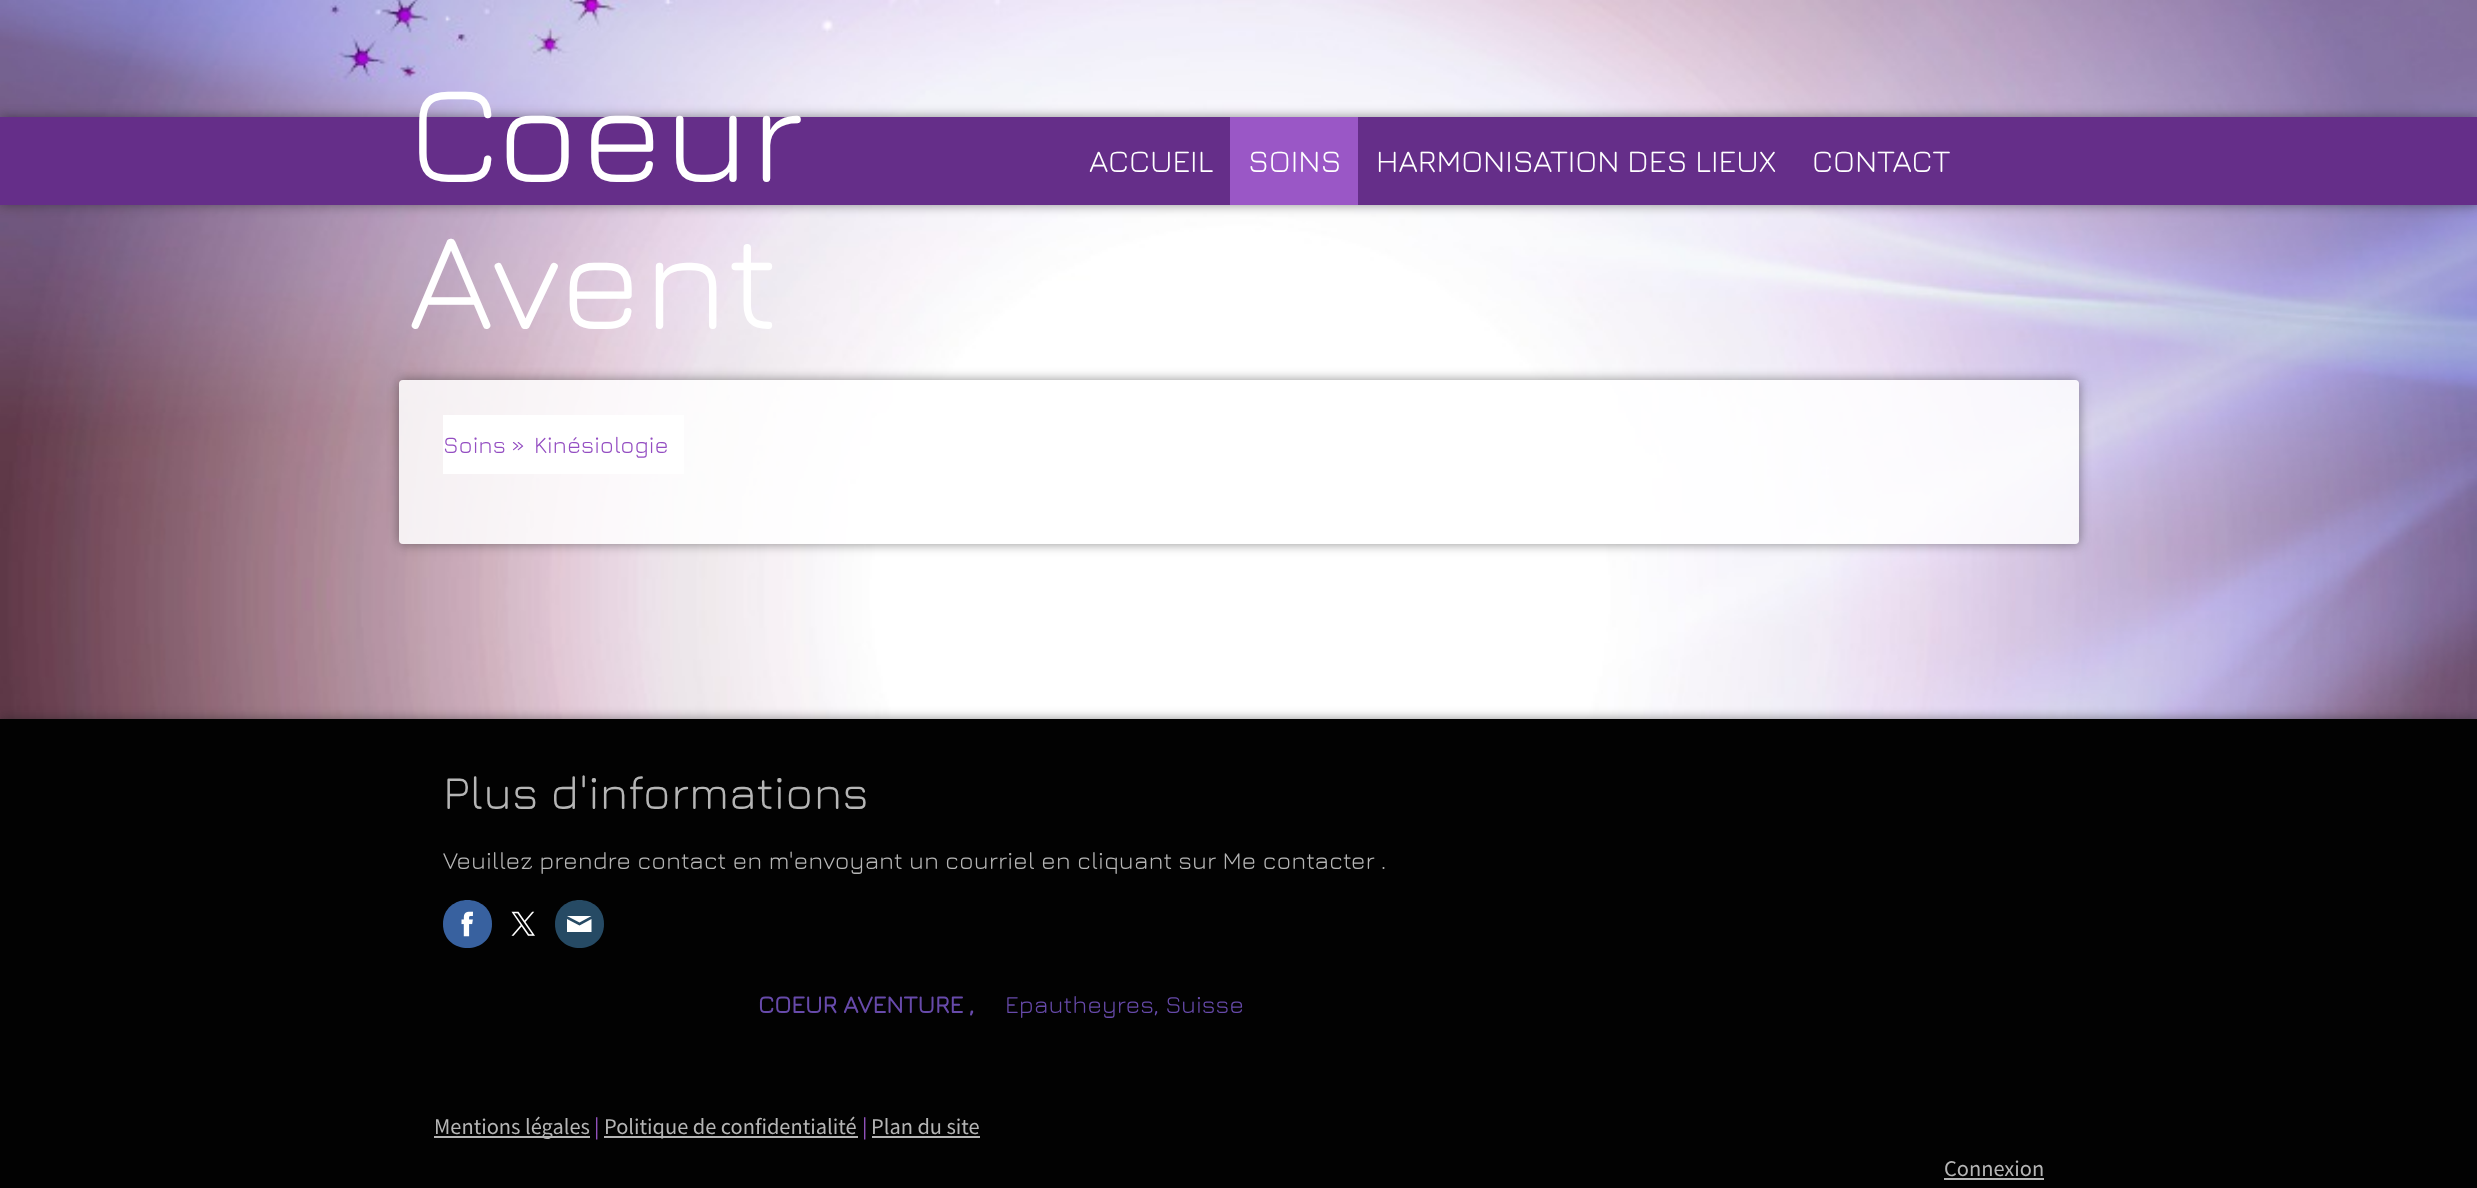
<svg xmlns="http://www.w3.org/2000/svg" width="2477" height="1188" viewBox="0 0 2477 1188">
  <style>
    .t1 { font: 300 140px Jura; fill: #fff; }
    .t2 { font: 300 31.5px Jura; fill: #fff; }
    .t3 { font: 300 23.5px Jura; fill: #944ec2; }
    .t4 { font: 300 47.25px Jura; fill: #b5b5b5; }
    .t5 { font: 300 24.5px Jura; fill: #b5b5b5; }
    .t6 { font: bold 24.5px Jura; fill: #674aaa; }
    .t7 { font: 300 24.5px Jura; fill: #674aaa; }
    .t8 { font: 22.4px Source Sans Pro; fill: #b5b5b5; }
    .t9 { font: 22.4px Source Sans Pro; fill: #9a57c6; }
  </style>
  <defs>
    <clipPath id="clip1"><path d="M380 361H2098V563H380ZM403 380H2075C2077 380 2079 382 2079 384V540C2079 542 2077 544 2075 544H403C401 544 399 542 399 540V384C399 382 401 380 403 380Z" clip-rule="evenodd"/></clipPath>
  </defs>
  <rect width="100%" height="100%" fill="#fff"/>
  <image x="0" y="0" width="2477" height="719" href="images/1.png"/>
  <rect x="0" y="117" width="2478" height="88" fill="#22222280" filter="blur(6px)"/>
  <rect x="0" y="117" width="2477" height="88" fill="#652e89"/>
  <text x="408" y="182" class="t1">Coeur</text>
  <text x="408" y="329" class="t1">Avent</text>
  <text x="1089" y="172" class="t2">ACCUEIL</text>
  <rect x="1230" y="117" width="128" height="88" fill="#9a57c6"/>
  <text x="1248" y="172" class="t2">SOINS</text>
  <text x="1376" y="172" class="t2">HARMONISATION DES LIEUX</text>
  <text x="1812" y="172" class="t2">CONTACT</text>
  <g clip-path="url(#clip1)">
    <rect x="399" y="380" width="1680" height="164" rx="4" fill="#22222280" filter="blur(6px)"/>
  </g>
  <rect x="399" y="380" width="1680" height="164" rx="4" fill="#ffffffd9"/>
  <rect x="443" y="415" width="241" height="59" fill="#fff"/>
  <text x="443" y="453" class="t3">Soins</text>
  <text x="511" y="453" class="t3">»</text>
  <text x="534" y="453" class="t3">Kinésiologie</text>
  <rect x="0" y="719" width="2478" height="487" fill="#22222280" filter="blur(6px)"/>
  <rect x="0" y="719" width="2477" height="469" fill="#020202"/>
  <text x="443" y="809" class="t4">Plus d'informations</text>
  <text x="443" y="869" class="t5">Veuillez prendre contact en m'envoyant un courriel en cliquant sur Me contacter .</text>
  <path d="M443 924C443 956 492 956 492 924C492 892 443 892 443 924Z" fill="#38619f"/>
  <image x="461" y="911" width="12" height="26" href="images/2.png"/>
  <image x="511" y="911" width="24" height="25" href="images/3.png"/>
  <path d="M555 924C555 956 604 956 604 924C604 892 555 892 555 924Z" fill="#264a64"/>
  <path d="M591.5 932H567V919L579.5 925.5L591.5 919ZM591.5 916H567L579.5 922.5Z" fill="#fff"/>
  <text x="758" y="1013" class="t6">COEUR AVENTURE ,</text>
  <text x="1005" y="1013" class="t7">Epautheyres, Suisse</text>
  <rect x="434" y="1136" width="156" height="2" fill="#b5b5b5"/>
  <text x="434" y="1134" class="t8">Mentions légales</text>
  <text x="594" y="1134" class="t9">|</text>
  <rect x="604" y="1136" width="254" height="2" fill="#b5b5b5"/>
  <text x="604" y="1134" class="t8">Politique de confidentialité</text>
  <text x="862" y="1134" class="t9">|</text>
  <text x="871" y="1134" class="t8">Plan du site</text>
  <rect x="872" y="1136" width="108" height="2" fill="#b5b5b5"/>
  <text x="1944" y="1176" class="t8">Connexion</text>
  <rect x="1944" y="1178" width="100" height="2" fill="#b5b5b5"/>
</svg>
